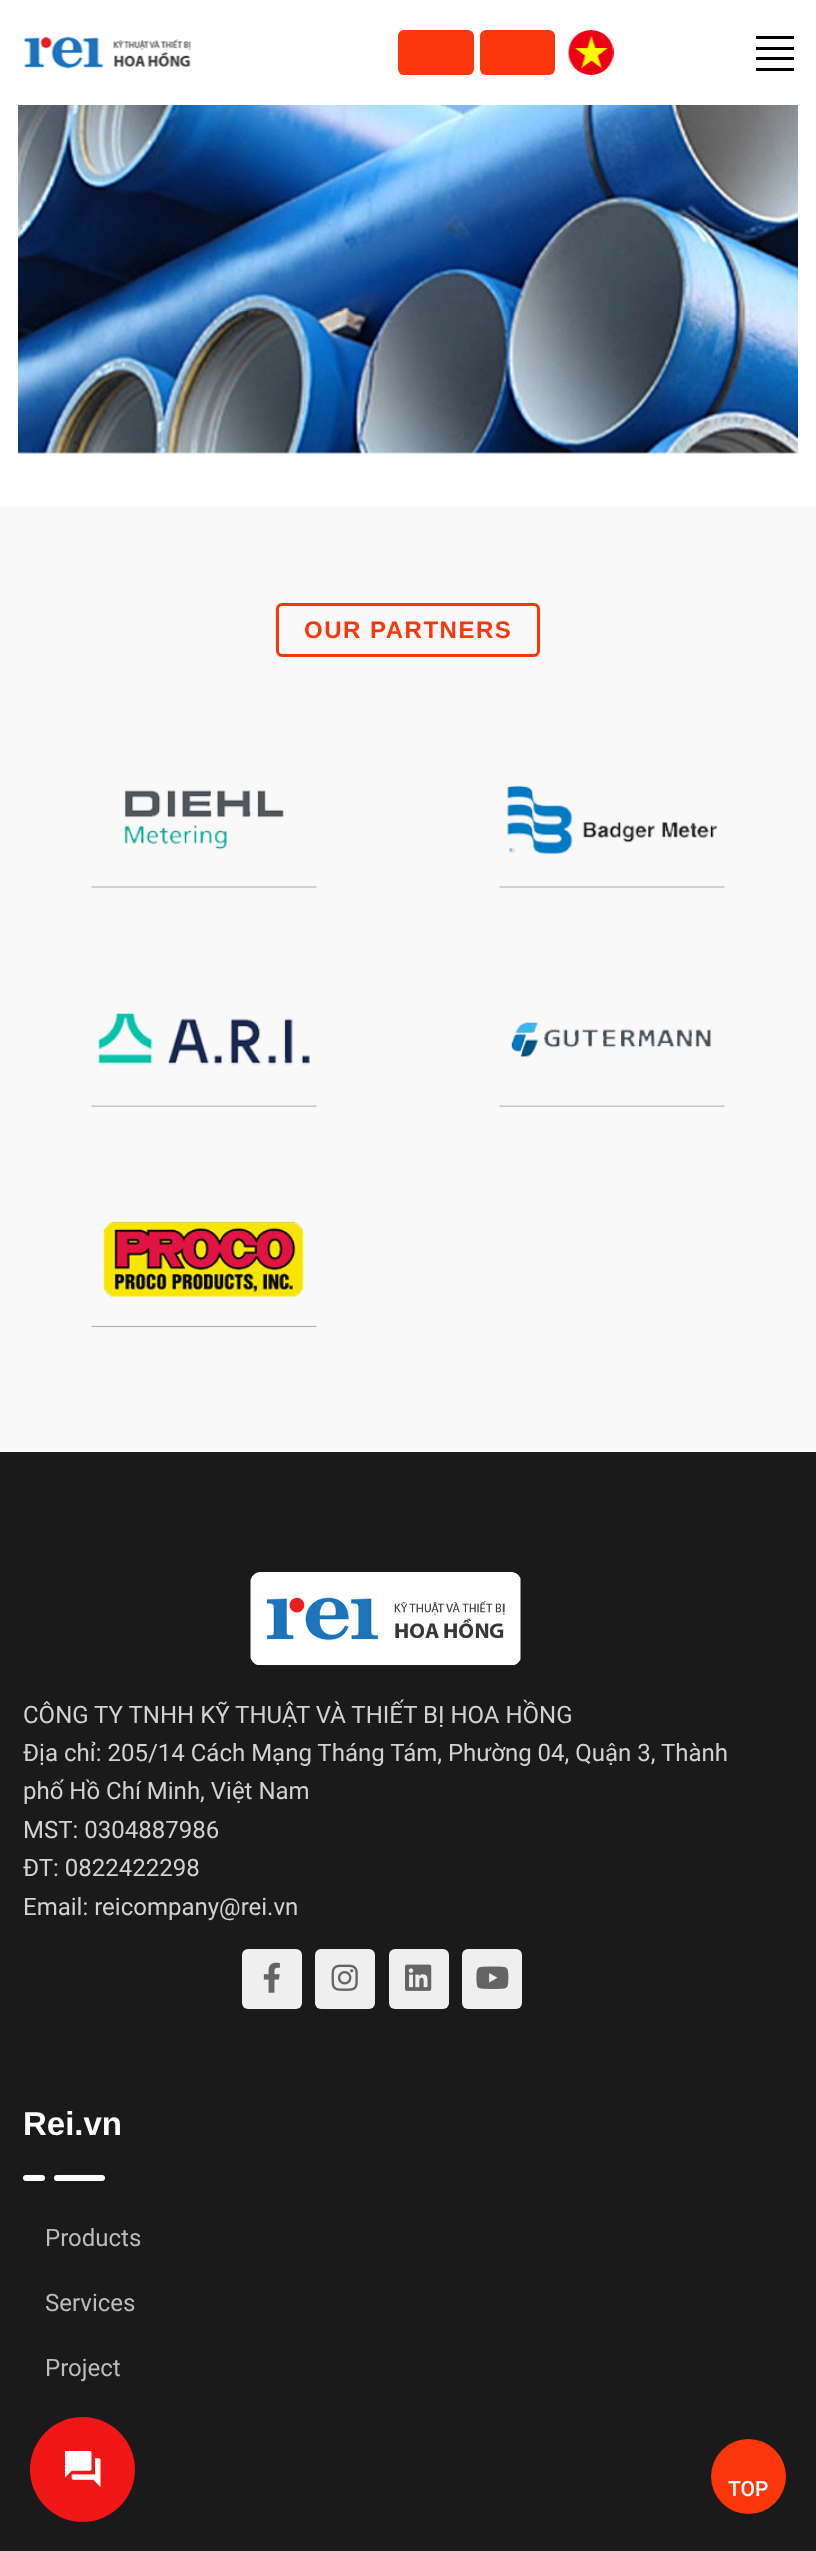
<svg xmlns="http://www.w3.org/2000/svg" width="816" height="2551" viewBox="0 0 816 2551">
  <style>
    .t1 { font: bold 24px Liberation Sans; letter-spacing: 1.5px; fill: #fa360a; }
    .t2 { font: 24px Roboto; fill: #d3d1d1; }
    .t3 { font: bold 33px Liberation Sans; fill: #fff; }
    .t4 { font: 24px Roboto; fill: #bbb; }
    .t5 { font: 500 21px Roboto; fill: #fff; }
  </style>
  <rect width="100%" height="100%" fill="#fff"/>
  <image x="24" y="36" width="167" height="33" href="images/1.png"/>
  <rect x="398" y="30" width="76" height="45" rx="6" fill="#fa360a"/>
  <rect x="480" y="30" width="75" height="45" rx="6" fill="#fa360a"/>
  <image x="568" y="30" width="46" height="45" href="images/2.png"/>
  <rect x="756" y="36" width="38" height="3" fill="#000"/>
  <rect x="756" y="47" width="38" height="3" fill="#000"/>
  <rect x="756" y="57" width="38" height="3" fill="#000"/>
  <rect x="756" y="68" width="38" height="3" fill="#000"/>
  <image x="18" y="105" width="780" height="349" href="images/3.png"/>
  <rect x="0" y="506" width="816" height="946" fill="#f9f9f9"/>
  <rect x="277.5" y="604.5" width="261" height="51" rx="4.5" fill="none" stroke="#fa360a" stroke-width="3"/>
  <text x="304" y="638" class="t1">OUR PARTNERS</text>
  <image x="91" y="790" width="226" height="98" href="images/4.png"/>
  <image x="499" y="785" width="226" height="103" href="images/5.png"/>
  <image x="91" y="1013" width="226" height="94" href="images/6.png"/>
  <image x="499" y="1022" width="226" height="85" href="images/7.png"/>
  <image x="91" y="1221" width="226" height="107" href="images/8.png"/>
  <rect x="0" y="1452" width="816" height="1099" fill="#1a1a1a"/>
  <image x="250" y="1572" width="271" height="93" href="images/9.png"/>
  <text x="23" y="1723" class="t2">CÔNG TY TNHH KỸ THUẬT VÀ THIẾT BỊ HOA HỒNG</text>
  <text x="23" y="1761" class="t2">Địa chỉ: 205/14 Cách Mạng Tháng Tám, Phường 04, Quận 3, Thành</text>
  <text x="23" y="1799" class="t2">phố Hồ Chí Minh, Việt Nam</text>
  <text x="23" y="1838" class="t2">MST: 0304887986</text>
  <text x="23" y="1876" class="t2">ĐT: 0822422298</text>
  <text x="23" y="1915" class="t2">Email: reicompany@rei.vn</text>
  <rect x="242" y="1949" width="60" height="60" rx="6" fill="#efefef"/>
  <image x="263" y="1962" width="17" height="31" href="images/10.png"/>
  <rect x="315" y="1949" width="60" height="60" rx="6" fill="#efefef"/>
  <image x="331" y="1964" width="27" height="27" href="images/11.png"/>
  <rect x="389" y="1949" width="60" height="60" rx="6" fill="#efefef"/>
  <image x="405" y="1964" width="27" height="27" href="images/12.png"/>
  <rect x="462" y="1949" width="60" height="60" rx="6" fill="#efefef"/>
  <image x="476" y="1966" width="33" height="23" href="images/13.png"/>
  <text x="23" y="2135" class="t3">Rei.vn</text>
  <rect x="23" y="2175" width="22" height="6" rx="3" fill="#fff"/>
  <rect x="54" y="2175" width="51" height="6" rx="3" fill="#fff"/>
  <text x="45" y="2246" class="t4">Products</text>
  <text x="45" y="2311" class="t4">Services</text>
  <text x="45" y="2376" class="t4">Project</text>
  <circle cx="82.5" cy="2469.5" r="52.5" fill="#f11716"/>
  <image x="65" y="2451" width="36" height="36" href="images/14.png"/>
  <circle cx="748.5" cy="2476.5" r="37.5" fill="#fa360a"/>
  <text x="728" y="2496" class="t5">TOP</text>
</svg>
